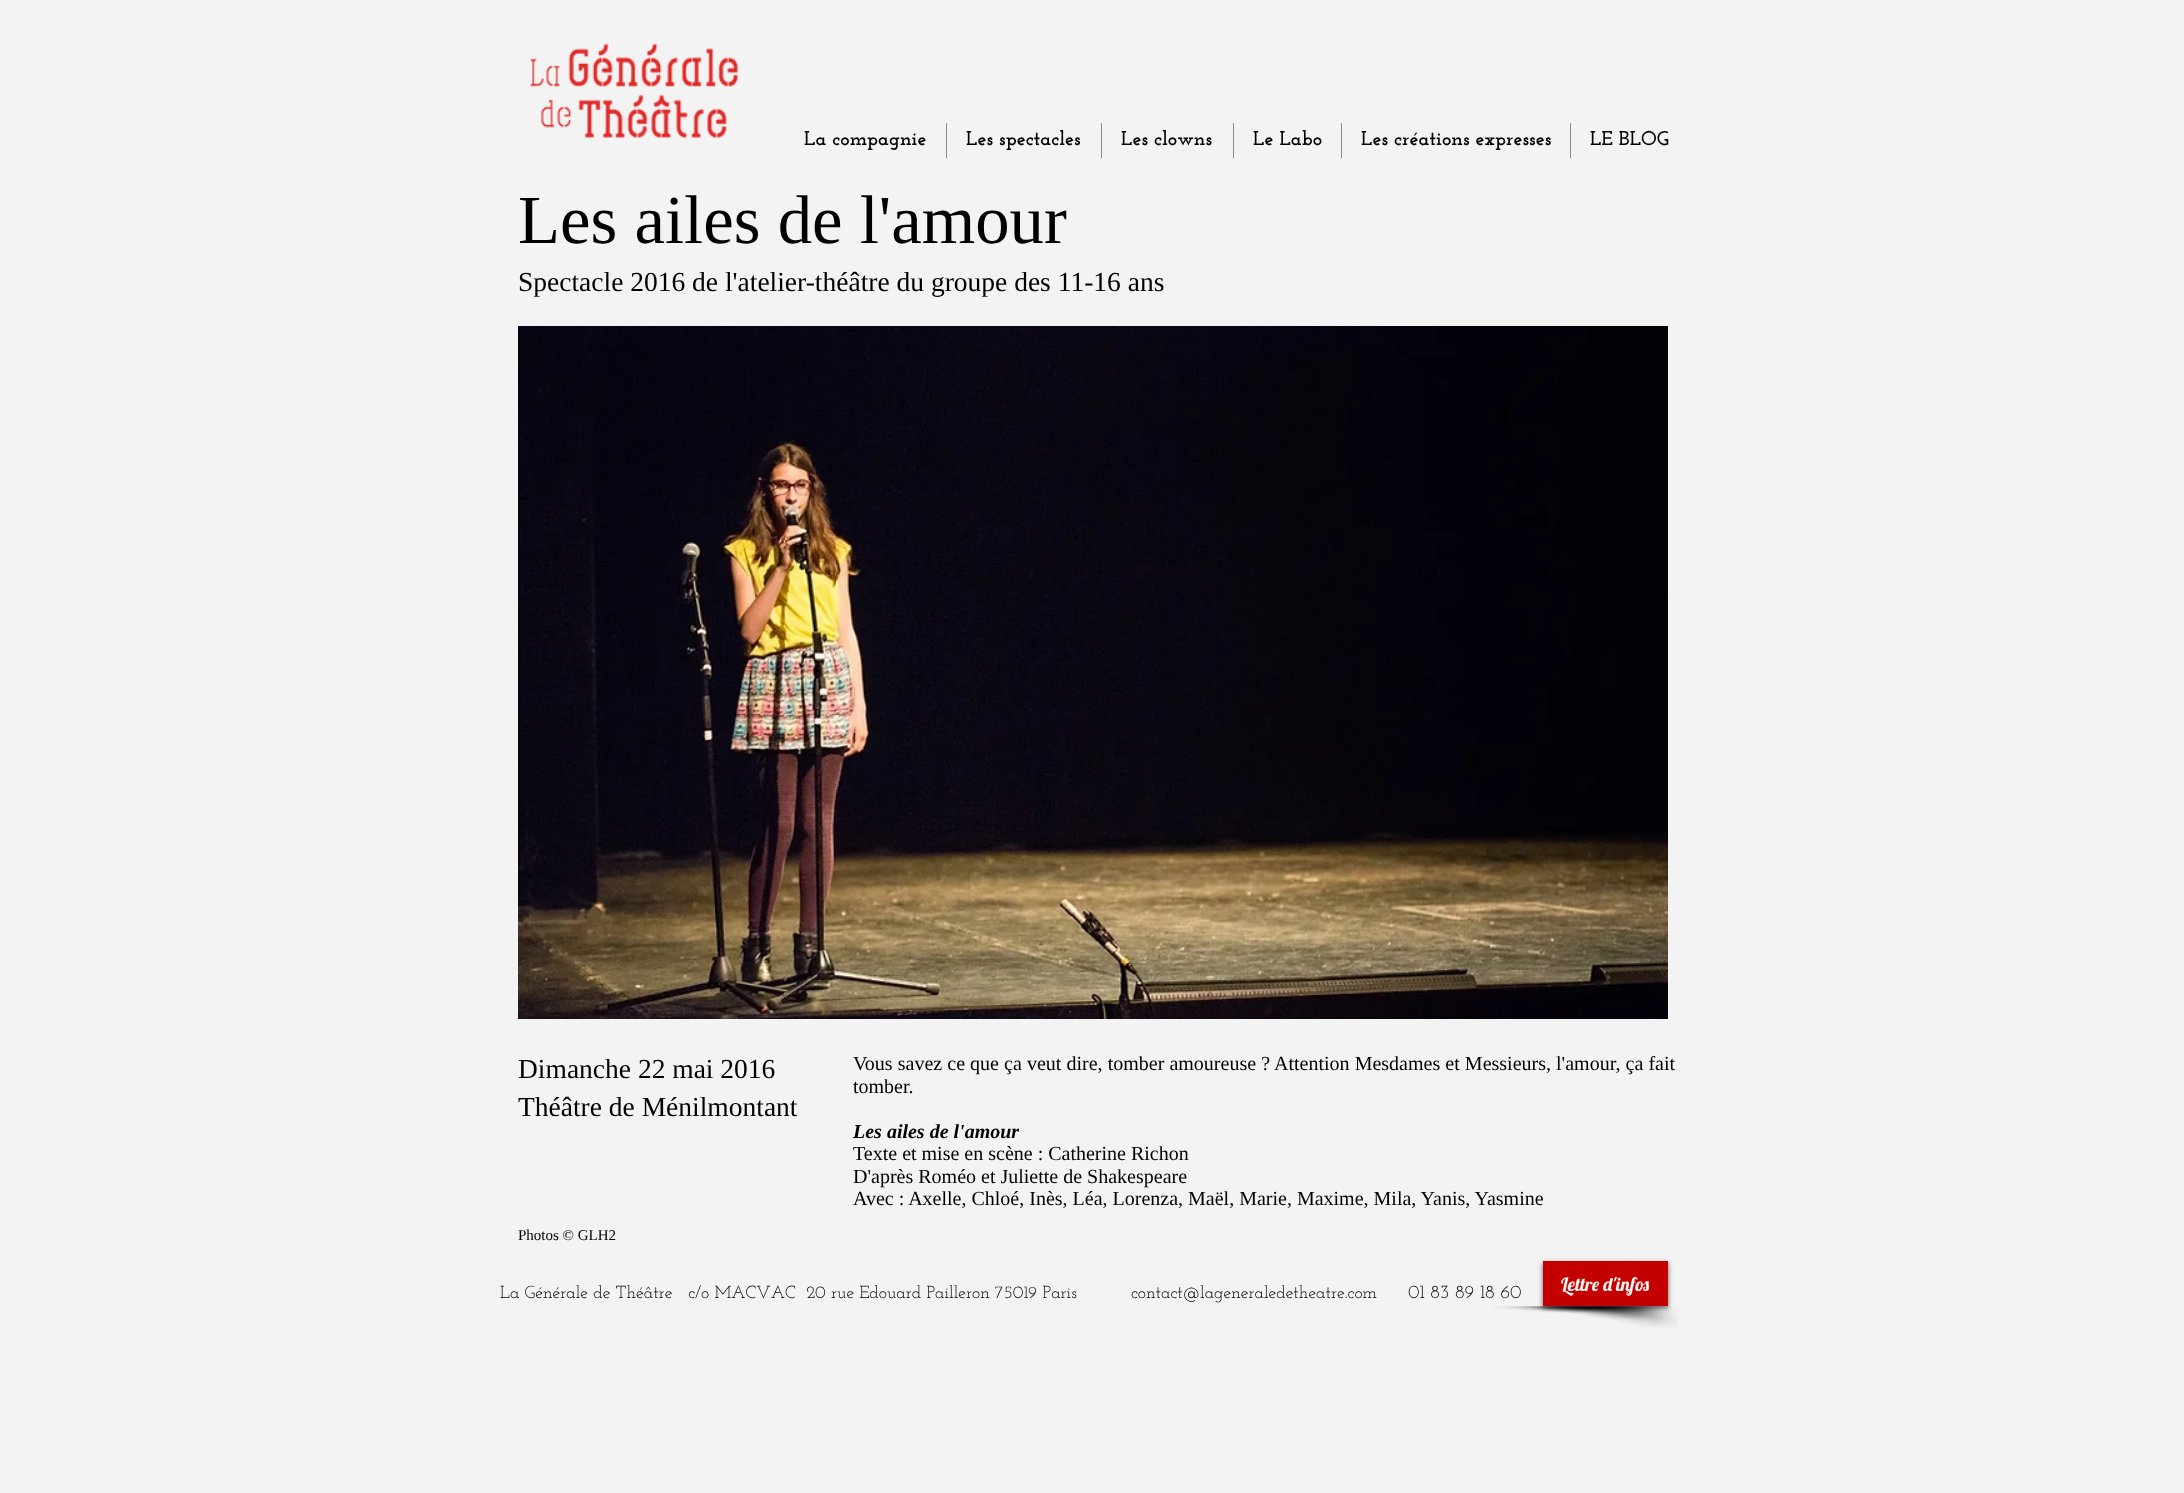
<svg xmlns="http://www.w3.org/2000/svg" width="2184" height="1493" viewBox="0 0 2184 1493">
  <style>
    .t1 { font: bold 20px Josefin Slab; fill: #000; }
    .t2 { font: 68.75px Liberation Serif; fill: #000; }
    .t3 { font: 27.5px Liberation Serif; fill: #000; }
    .t4 { font: 15px Liberation Serif; fill: #000; }
    .t5 { font: 20px Liberation Serif; fill: #000; }
    .t6 { font: italic bold 20px Liberation Serif; fill: #000; }
    .t7 { font: 17.5px Josefin Slab; fill: #000; }
    .t8 { font: 18.75px Josefin Slab; fill: #000; }
    .t9 { font: 18.75px Lobster; fill: #f3f3f3; }
  </style>
  <rect width="100%" height="100%" fill="#f3f3f3"/>
  <image x="530" y="43" width="209" height="95" href="images/1.png"/>
  <text x="804" y="145" class="t1">La compagnie</text>
  <rect x="946" y="123" width="1" height="35" fill="#8b8888"/>
  <text x="966" y="145" class="t1">Les spectacles</text>
  <rect x="1101" y="123" width="1" height="35" fill="#8b8888"/>
  <text x="1121" y="145" class="t1">Les clowns</text>
  <rect x="1233" y="123" width="1" height="35" fill="#8b8888"/>
  <text x="1253" y="145" class="t1">Le Labo</text>
  <rect x="1341" y="123" width="1" height="35" fill="#8b8888"/>
  <text x="1361" y="145" class="t1">Les créations expresses</text>
  <rect x="1570" y="123" width="1" height="35" fill="#8b8888"/>
  <text x="1590" y="145" class="t1">LE BLOG</text>
  <text x="518" y="243" class="t2">Les ailes de l'amour</text>
  <text x="518" y="291" class="t3">Spectacle 2016 de l'atelier-théâtre du groupe des 11-16 ans</text>
  <image x="518" y="326" width="1150" height="693" href="images/2.png"/>
  <text x="518" y="1078" class="t3">Dimanche 22 mai 2016</text>
  <text x="518" y="1116" class="t3">Théâtre de Ménilmontant</text>
  <text x="518" y="1240" class="t4">Photos © GLH2</text>
  <text x="853" y="1070" word-spacing="0.1" class="t5">Vous savez ce que ça veut dire, tomber amoureuse ? Attention Mesdames et Messieurs, l'amour, ça fait</text>
  <text x="853" y="1093" class="t5">tomber.</text>
  <text x="853" y="1138" class="t6">Les ailes de l'amour</text>
  <text x="853" y="1160" class="t5">Texte et mise en scène : Catherine Richon</text>
  <text x="853" y="1183" class="t5">D'après Roméo et Juliette de Shakespeare</text>
  <text x="853" y="1205" class="t5">Avec : Axelle, Chloé, Inès, Léa, Lorenza, Maël, Marie, Maxime, Mila, Yanis, Yasmine</text>
  <text x="500" y="1298" class="t7" xml:space="preserve">La Générale de Théâtre   c/o MACVAC  20 rue Edouard Pailleron 75019 Paris</text>
  <text x="1131" y="1298" class="t7">contact@lageneraledetheatre.com</text>
  <text x="1408" y="1298" class="t8">01 83 89 18 60</text>
  <image x="1494" y="1306" width="184" height="22" href="images/3.png"/>
  <rect x="1543" y="1263" width="125" height="45" fill="#00000099" filter="blur(2.5px)"/>
  <rect x="1543" y="1261" width="125" height="45" fill="#c40000"/>
  <text x="1561" y="1291" class="t9">Lettre d'infos</text>
</svg>
